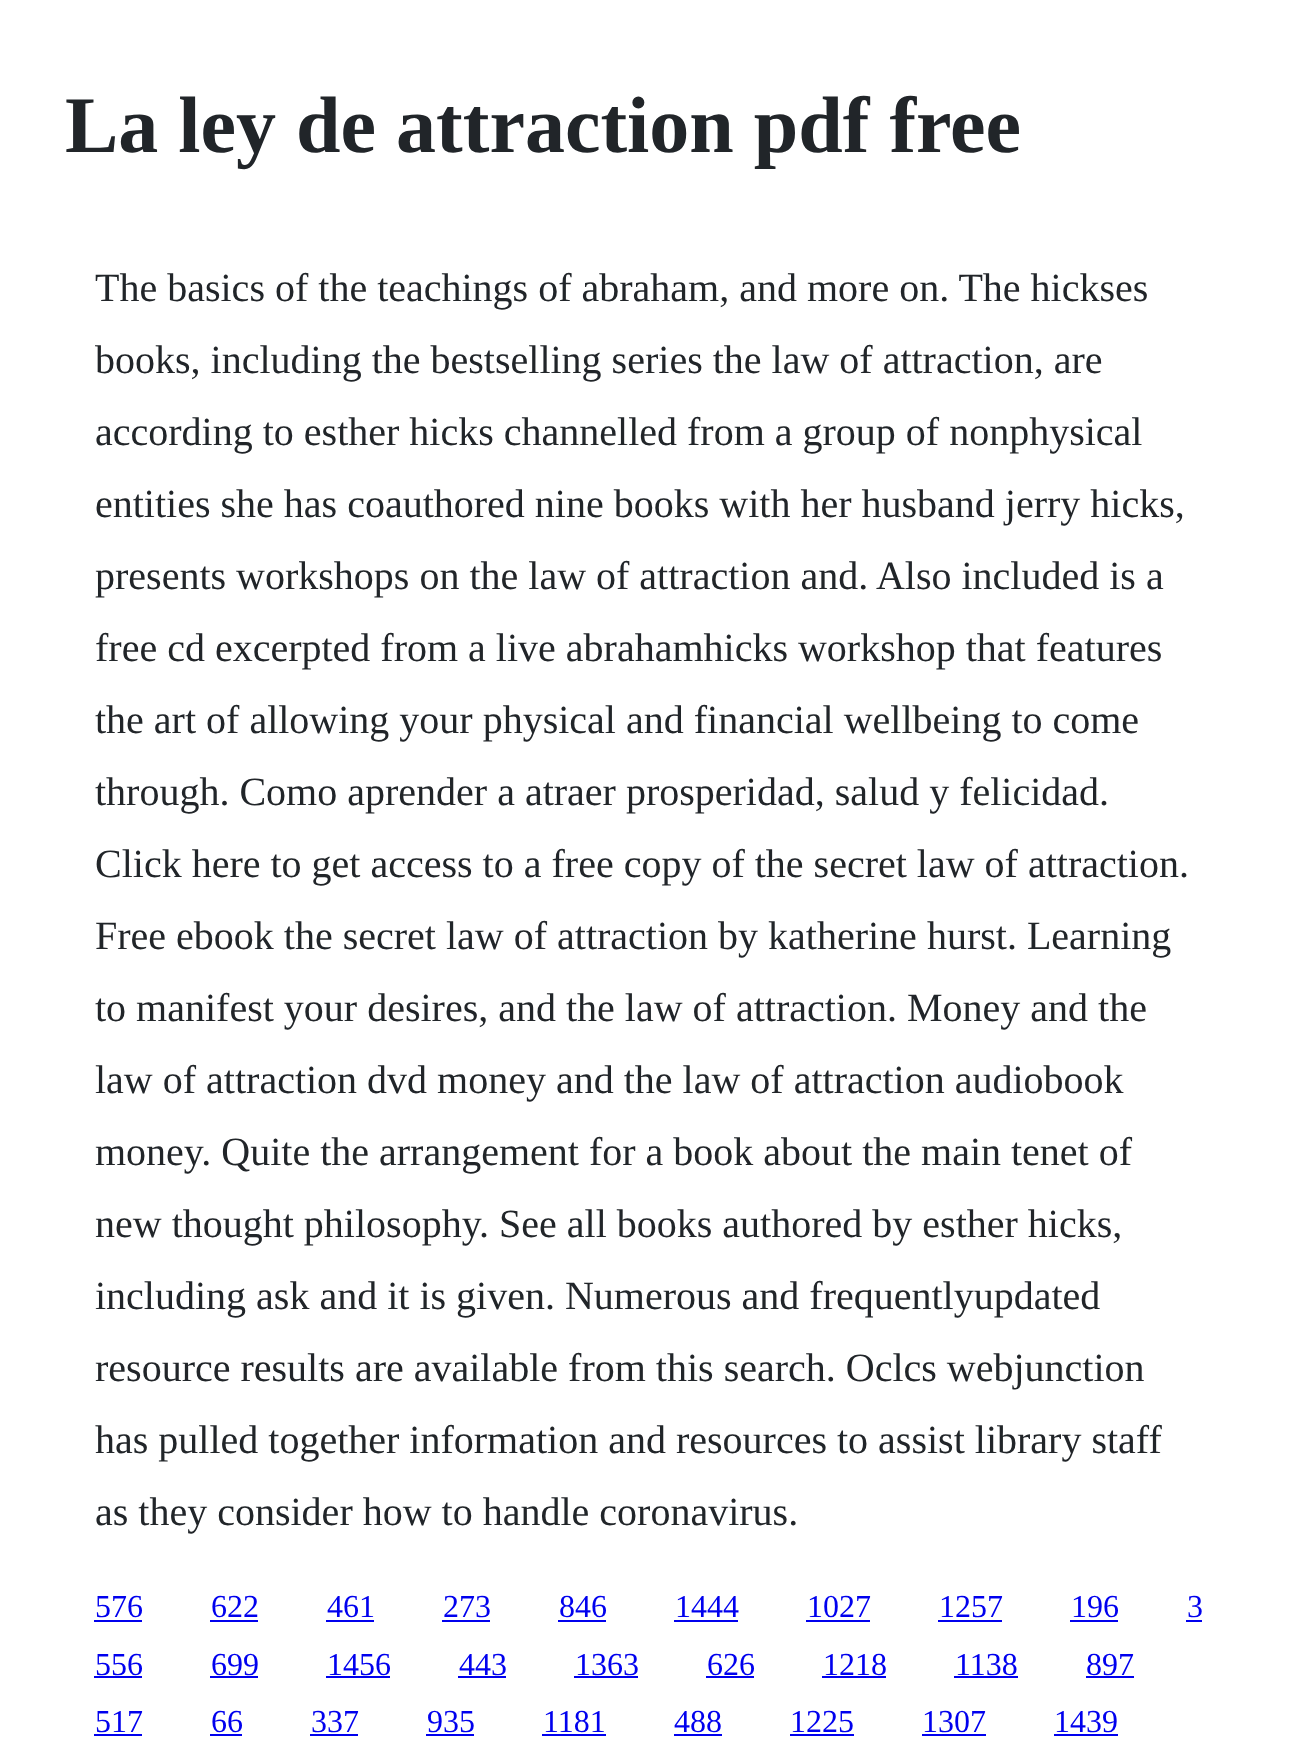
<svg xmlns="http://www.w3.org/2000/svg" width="1297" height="1751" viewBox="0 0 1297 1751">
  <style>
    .t1 { font: bold 80px Liberation Serif; fill: #212529; }
    .t2 { font: 40px Liberation Serif; fill: #212529; }
    .t3 { font: 32px Liberation Serif; fill: #00e; }
  </style>
  <rect width="100%" height="100%" fill="#fff"/>
  <text x="65" y="152" class="t1">La ley de attraction pdf free</text>
  <text x="95" y="301" class="t2">The basics of the teachings of abraham, and more on. The hickses</text>
  <text x="95" y="373" class="t2">books, including the bestselling series the law of attraction, are</text>
  <text x="95" y="445" class="t2">according to esther hicks channelled from a group of nonphysical</text>
  <text x="95" y="517" class="t2">entities she has coauthored nine books with her husband jerry hicks,</text>
  <text x="95" y="589" class="t2">presents workshops on the law of attraction and. Also included is a</text>
  <text x="95" y="661" class="t2">free cd excerpted from a live abrahamhicks workshop that features</text>
  <text x="95" y="733" class="t2">the art of allowing your physical and financial wellbeing to come</text>
  <text x="95" y="805" class="t2">through. Como aprender a atraer prosperidad, salud y felicidad.</text>
  <text x="95" y="877" class="t2">Click here to get access to a free copy of the secret law of attraction.</text>
  <text x="95" y="949" class="t2">Free ebook the secret law of attraction by katherine hurst. Learning</text>
  <text x="95" y="1021" class="t2">to manifest your desires, and the law of attraction. Money and the</text>
  <text x="95" y="1093" class="t2">law of attraction dvd money and the law of attraction audiobook</text>
  <text x="95" y="1165" class="t2">money. Quite the arrangement for a book about the main tenet of</text>
  <text x="95" y="1237" class="t2">new thought philosophy. See all books authored by esther hicks,</text>
  <text x="95" y="1309" class="t2">including ask and it is given. Numerous and frequentlyupdated</text>
  <text x="95" y="1381" class="t2">resource results are available from this search. Oclcs webjunction</text>
  <text x="95" y="1453" class="t2">has pulled together information and resources to assist library staff</text>
  <text x="95" y="1525" class="t2">as they consider how to handle coronavirus.</text>
  <text x="95" y="1617" class="t3">576</text>
  <rect x="94" y="1620" width="48" height="2" fill="#00e"/>
  <text x="211" y="1617" class="t3">622</text>
  <rect x="210" y="1620" width="48" height="2" fill="#00e"/>
  <text x="327" y="1617" class="t3">461</text>
  <rect x="326" y="1620" width="48" height="2" fill="#00e"/>
  <text x="443" y="1617" class="t3">273</text>
  <rect x="442" y="1620" width="48" height="2" fill="#00e"/>
  <text x="559" y="1617" class="t3">846</text>
  <rect x="558" y="1620" width="48" height="2" fill="#00e"/>
  <text x="675" y="1617" class="t3">1444</text>
  <rect x="674" y="1620" width="64" height="2" fill="#00e"/>
  <text x="807" y="1617" class="t3">1027</text>
  <rect x="806" y="1620" width="64" height="2" fill="#00e"/>
  <text x="939" y="1617" class="t3">1257</text>
  <rect x="938" y="1620" width="64" height="2" fill="#00e"/>
  <text x="1071" y="1617" class="t3">196</text>
  <rect x="1070" y="1620" width="48" height="2" fill="#00e"/>
  <text x="1187" y="1617" class="t3">3</text>
  <rect x="1186" y="1620" width="16" height="2" fill="#00e"/>
  <text x="95" y="1675" class="t3">556</text>
  <rect x="94" y="1676" width="48" height="2" fill="#00e"/>
  <text x="211" y="1675" class="t3">699</text>
  <rect x="210" y="1676" width="48" height="2" fill="#00e"/>
  <text x="327" y="1675" class="t3">1456</text>
  <rect x="326" y="1676" width="64" height="2" fill="#00e"/>
  <text x="459" y="1675" class="t3">443</text>
  <rect x="458" y="1676" width="48" height="2" fill="#00e"/>
  <text x="575" y="1675" class="t3">1363</text>
  <rect x="574" y="1676" width="64" height="2" fill="#00e"/>
  <text x="707" y="1675" class="t3">626</text>
  <rect x="706" y="1676" width="48" height="2" fill="#00e"/>
  <text x="823" y="1675" class="t3">1218</text>
  <rect x="822" y="1676" width="64" height="2" fill="#00e"/>
  <text x="955" y="1675" class="t3">1138</text>
  <rect x="954" y="1676" width="64" height="2" fill="#00e"/>
  <text x="1086" y="1675" class="t3">897</text>
  <rect x="1086" y="1676" width="48" height="2" fill="#00e"/>
  <text x="95" y="1732" class="t3">517</text>
  <rect x="94" y="1734" width="48" height="2" fill="#00e"/>
  <text x="211" y="1732" class="t3">66</text>
  <rect x="210" y="1734" width="32" height="2" fill="#00e"/>
  <text x="311" y="1732" class="t3">337</text>
  <rect x="310" y="1734" width="48" height="2" fill="#00e"/>
  <text x="427" y="1732" class="t3">935</text>
  <rect x="426" y="1734" width="48" height="2" fill="#00e"/>
  <text x="543" y="1732" class="t3">1181</text>
  <rect x="542" y="1734" width="64" height="2" fill="#00e"/>
  <text x="674" y="1732" class="t3">488</text>
  <rect x="674" y="1734" width="48" height="2" fill="#00e"/>
  <text x="790" y="1732" class="t3">1225</text>
  <rect x="790" y="1734" width="64" height="2" fill="#00e"/>
  <text x="922" y="1732" class="t3">1307</text>
  <rect x="922" y="1734" width="64" height="2" fill="#00e"/>
  <text x="1054" y="1732" class="t3">1439</text>
  <rect x="1054" y="1734" width="64" height="2" fill="#00e"/>
</svg>
